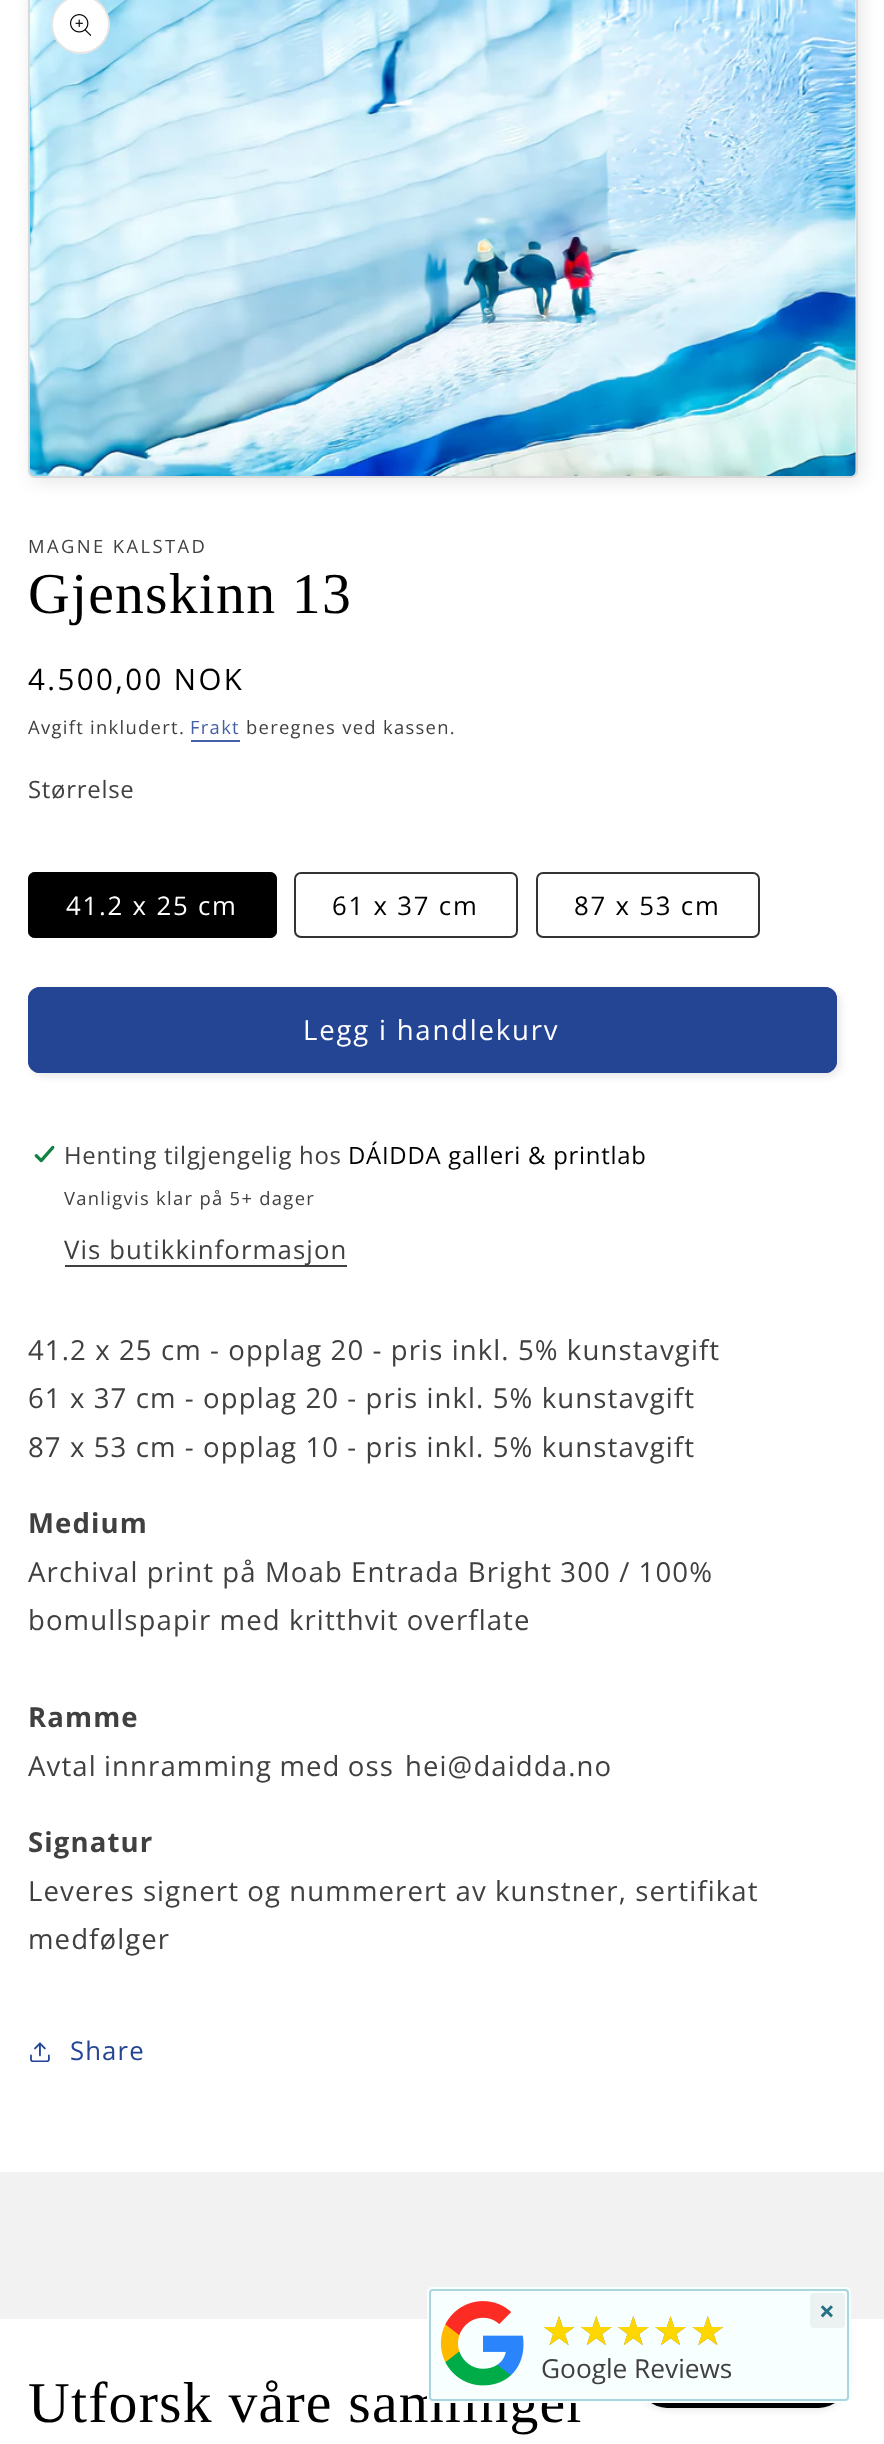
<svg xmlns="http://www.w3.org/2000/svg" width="884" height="2444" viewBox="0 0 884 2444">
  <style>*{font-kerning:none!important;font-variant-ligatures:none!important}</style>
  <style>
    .t1 { font: 18.4px Open Sans; letter-spacing: 2.4px; fill: #404040; }
    .t2 { font: 57.75px Liberation Serif; letter-spacing: 1.2px; fill: #000; }
    .t3 { font: 29.5px Open Sans; letter-spacing: 2.4px; fill: #000; }
    .t4 { font: 18.4px Open Sans; letter-spacing: 1.3px; fill: #404040; }
    .t5 { font: 18.4px Open Sans; letter-spacing: 1.3px; fill: #4560a4; }
    .t6 { font: 23.9px Open Sans; letter-spacing: 0.75px; fill: #404040; }
    .t7 { font: 25.75px Open Sans; letter-spacing: 1.8px; fill: #fff; }
    .t8 { font: 25.75px Open Sans; letter-spacing: 1.8px; fill: #000; }
    .t9 { font: 27.55px Open Sans; letter-spacing: 1.8px; fill: #fff; }
    .t10 { font: 23.9px Open Sans; letter-spacing: 0.75px; fill: #000; }
    .t11 { font: 25.75px Open Sans; letter-spacing: 1.1px; fill: #404040; }
    .t12 { font: 27.55px Open Sans; letter-spacing: 1.1px; fill: #404040; }
    .t13 { font: bold 27.55px Open Sans; letter-spacing: 1.1px; fill: #404040; }
    .t14 { font: 25.75px Open Sans; letter-spacing: 1.1px; fill: #244494; }
    .t15 { font: bold 27.55px Open Sans; letter-spacing: 1.1px; fill: #276f86; }
    .t16 { font: 40.25px DejaVu Sans; letter-spacing: 1.1px; fill: #808080; }
    .t17 { font: 40.25px DejaVu Sans; letter-spacing: 1.1px; fill: #ffd700; }
    .t18 { font: 26.25px Open Sans; fill: #404040; }
  </style>
  <rect width="100%" height="100%" fill="#fff"/>
  <rect x="32" y="-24" width="829" height="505" rx="7" fill="#0000001a" filter="blur(9px)"/>
  <rect x="28" y="-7" width="830" height="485" rx="7" fill="#fff"/>
  <rect x="29" y="-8" width="828" height="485" rx="6" fill="none" stroke="#00000026" stroke-width="2"/>
  <image x="29" y="0" width="827" height="476" href="images/2.png"/>
  <circle cx="80.5" cy="24.5" r="29.5" fill="#fff"/>
  <circle cx="80.5" cy="24.5" r="28.5" fill="none" stroke="#0000001a" stroke-width="2"/>
  <image x="70" y="14" width="21" height="22" href="images/1.png"/>
  <text x="28" y="553" class="t1">MAGNE KALSTAD</text>
  <text x="28" y="613" class="t2">Gjenskinn 13</text>
  <text x="28" y="690" class="t3">4.500,00 NOK</text>
  <text x="28" y="734" class="t4">Avgift inkludert.</text>
  <text x="190" y="734" class="t5">Frakt</text>
  <rect x="191" y="740" width="49" height="2" fill="#4560a4"/>
  <text x="246" y="734" class="t4">beregnes ved kassen.</text>
  <text x="28" y="798" class="t6">Størrelse</text>
  <rect x="28" y="872" width="249" height="66" rx="7" fill="#000"/>
  <rect x="29" y="873" width="247" height="64" rx="6" fill="none" stroke="#000000cc" stroke-width="2"/>
  <text x="66" y="915" class="t7">41.2 x 25 cm</text>
  <rect x="295" y="873" width="222" height="64" rx="6" fill="none" stroke="#333" stroke-width="2"/>
  <text x="332" y="915" class="t8">61 x 37 cm</text>
  <rect x="537" y="873" width="222" height="64" rx="6" fill="none" stroke="#333" stroke-width="2"/>
  <text x="574" y="915" class="t8">87 x 53 cm</text>
  <rect x="32" y="991" width="808" height="85" rx="12" fill="#0000001a" filter="blur(4.5px)"/>
  <rect x="28" y="987" width="809" height="86" rx="12" fill="#244494"/>
  <rect x="29" y="988" width="807" height="84" rx="11" fill="none" stroke="#244494" stroke-width="2"/>
  <text x="303" y="1040" class="t9">Legg i handlekurv</text>
  <image x="34" y="1145" width="21" height="18" href="images/3.png"/>
  <text x="64" y="1164" class="t6">Henting tilgjengelig hos</text>
  <text x="348" y="1164" class="t10">DÁIDDA galleri &amp; printlab</text>
  <text x="64" y="1205" class="t4">Vanligvis klar på 5+ dager</text>
  <rect x="65" y="1265" width="282" height="2" fill="#404040"/>
  <text x="64" y="1259" class="t11">Vis butikkinformasjon</text>
  <text x="28" y="1360" class="t12">41.2 x 25 cm - opplag 20 - pris inkl. 5% kunstavgift</text>
  <text x="28" y="1408" class="t12">61 x 37 cm - opplag 20 - pris inkl. 5% kunstavgift</text>
  <text x="28" y="1457" class="t12">87 x 53 cm - opplag 10 - pris inkl. 5% kunstavgift</text>
  <text x="28" y="1533" class="t13">Medium</text>
  <text x="28" y="1582" class="t12">Archival print på Moab Entrada Bright 300 / 100%</text>
  <text x="28" y="1630" class="t12">bomullspapir med kritthvit overflate</text>
  <text x="28" y="1727" class="t13">Ramme</text>
  <text x="28" y="1776" word-spacing="-1" class="t12">Avtal innramming med oss</text>
  <text x="405" y="1776" class="t12">hei@daidda.no</text>
  <text x="28" y="1852" class="t13">Signatur</text>
  <text x="28" y="1901" class="t12">Leveres signert og nummerert av kunstner, sertifikat</text>
  <text x="28" y="1949" class="t12">medfølger</text>
  <image x="30" y="2042" width="20" height="20" href="images/4.png"/>
  <text x="70" y="2060" class="t14">Share</text>
  <rect x="0" y="2172" width="884" height="147" fill="#f2f2f2"/>
  <text x="28" y="2422" class="t2">Utforsk våre samlinger</text>
  <rect x="639" y="2303" width="208" height="105" rx="28" fill="#00000026" filter="blur(4.5px)"/>
  <rect x="639" y="2303" width="208" height="105" rx="28" fill="#000"/>
  <rect x="427" y="2287" width="424" height="116" rx="5" fill="#f8ffff"/>
  <rect x="430" y="2290" width="418" height="110" rx="3" fill="none" stroke="#a9d5de" stroke-width="2"/>
  <rect x="810" y="2293" width="35" height="35" rx="4" fill="#ecf2f2"/>
  <text x="819" y="2321" class="t15">×</text>
  <image x="440" y="2301" width="84" height="85" href="images/5.png"/>
  <text x="541" y="2345" class="t16">★★★★★</text>
  <text x="541" y="2345" class="t17">★★★★★</text>
  <text x="541" y="2378" class="t18">Google Reviews</text>
</svg>
